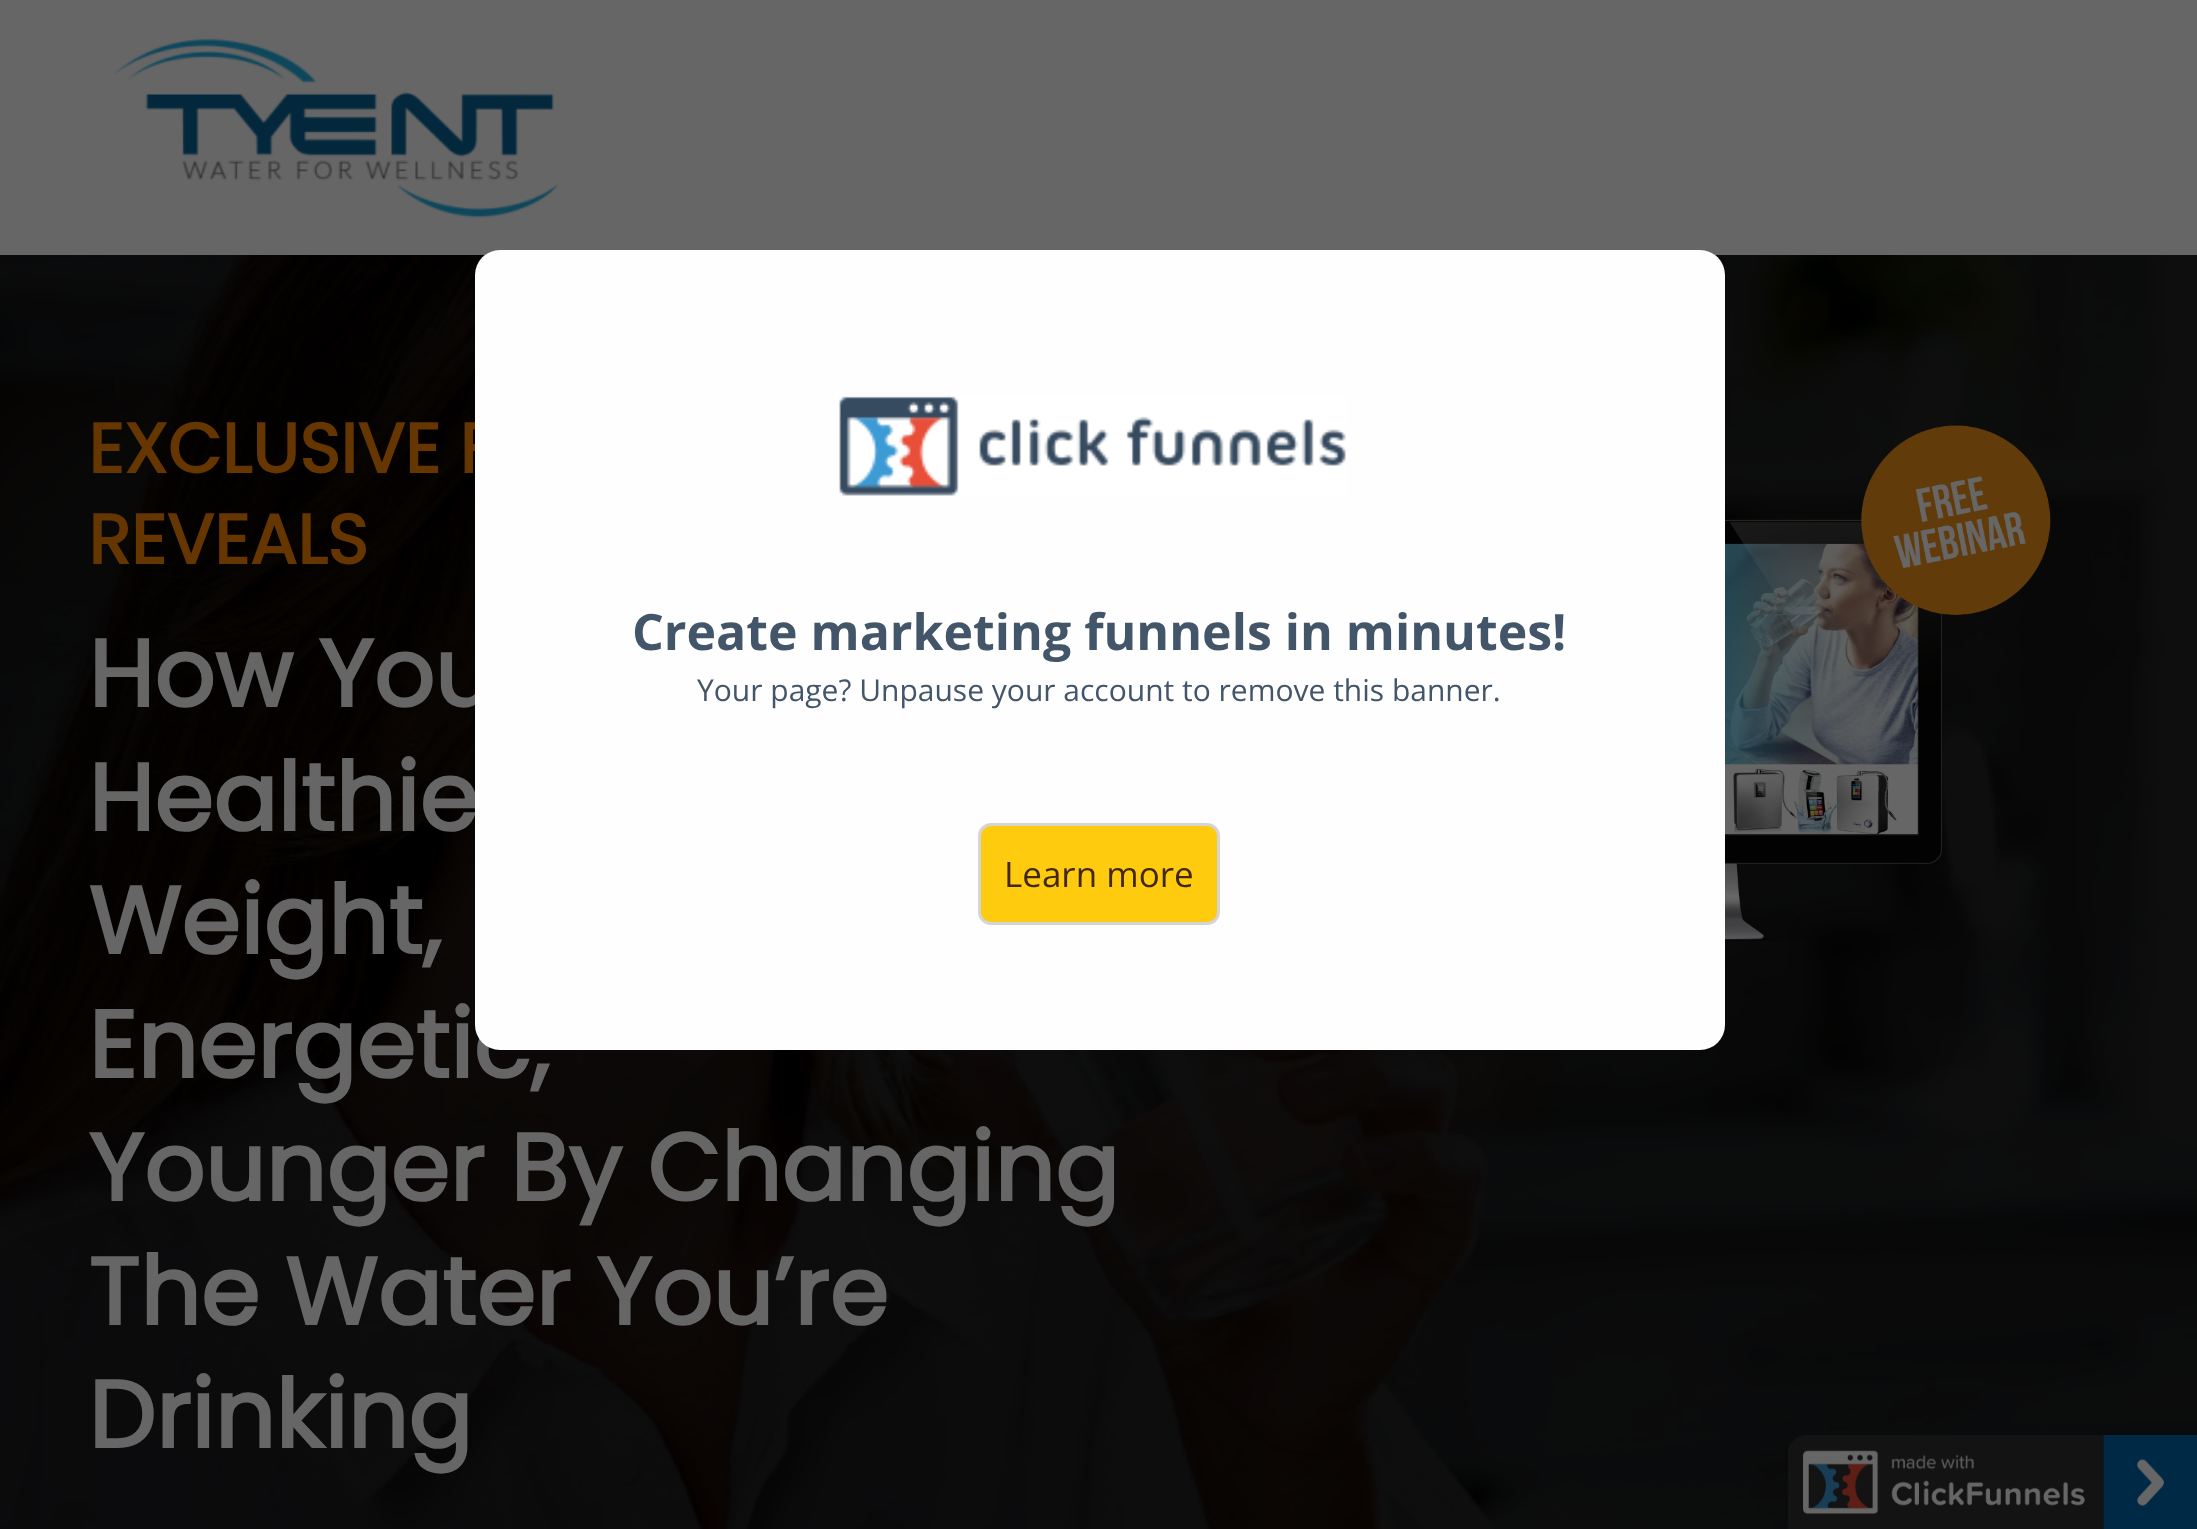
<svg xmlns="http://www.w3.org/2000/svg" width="2197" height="1529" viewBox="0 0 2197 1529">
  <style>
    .t1 { font: bold 70px Poppins; fill: #663600; }
    .t2 { font: bold 95px Poppins; fill: #666; }
    .t3 { font: bold 50px Open Sans; fill: #435569; }
    .t4 { font: 30px Open Sans; fill: #435569; }
    .t5 { font: 35px Open Sans; fill: #432811; }
  </style>
  <rect width="100%" height="100%" fill="#fff"/>
  <image x="0" y="255" width="2197" height="1274" href="images/1.png"/>
  <rect x="0" y="0" width="2197" height="255" fill="#666"/>
  <image x="114" y="38" width="445" height="180" href="images/2.png"/>
  <rect x="0" y="255" width="2197" height="1274" fill="#00000099"/>
  <text x="88" y="473" class="t1">EXCLUSIVE F</text>
  <text x="88" y="564" class="t1">REVEALS</text>
  <text x="88" y="707" class="t2">How You</text>
  <text x="88" y="831" class="t2">Healthie</text>
  <text x="88" y="954" class="t2">Weight,</text>
  <text x="88" y="1078" class="t2">Energetic,</text>
  <text x="88" y="1201" class="t2">Younger By Changing</text>
  <text x="88" y="1325" class="t2">The Water You’re</text>
  <text x="88" y="1448" class="t2">Drinking</text>
  <image x="1725" y="425" width="326" height="516" href="images/3.png"/>
  <rect x="475" y="250" width="1250" height="800" rx="25" fill="#fefefe"/>
  <image x="839" y="396" width="507" height="100" href="images/4.png"/>
  <text x="632" y="650" class="t3">Create marketing funnels in minutes!</text>
  <text x="697" y="701" class="t4">Your page? Unpause your account to remove this banner.</text>
  <rect x="979.5" y="824.5" width="239" height="99" rx="11.5" fill="#ffcb0e" stroke="#d4d4d4" stroke-width="3"/>
  <text x="1004" y="887" class="t5">Learn more</text>
  <image x="1788" y="1435" width="409" height="94" href="images/5.png"/>
</svg>
